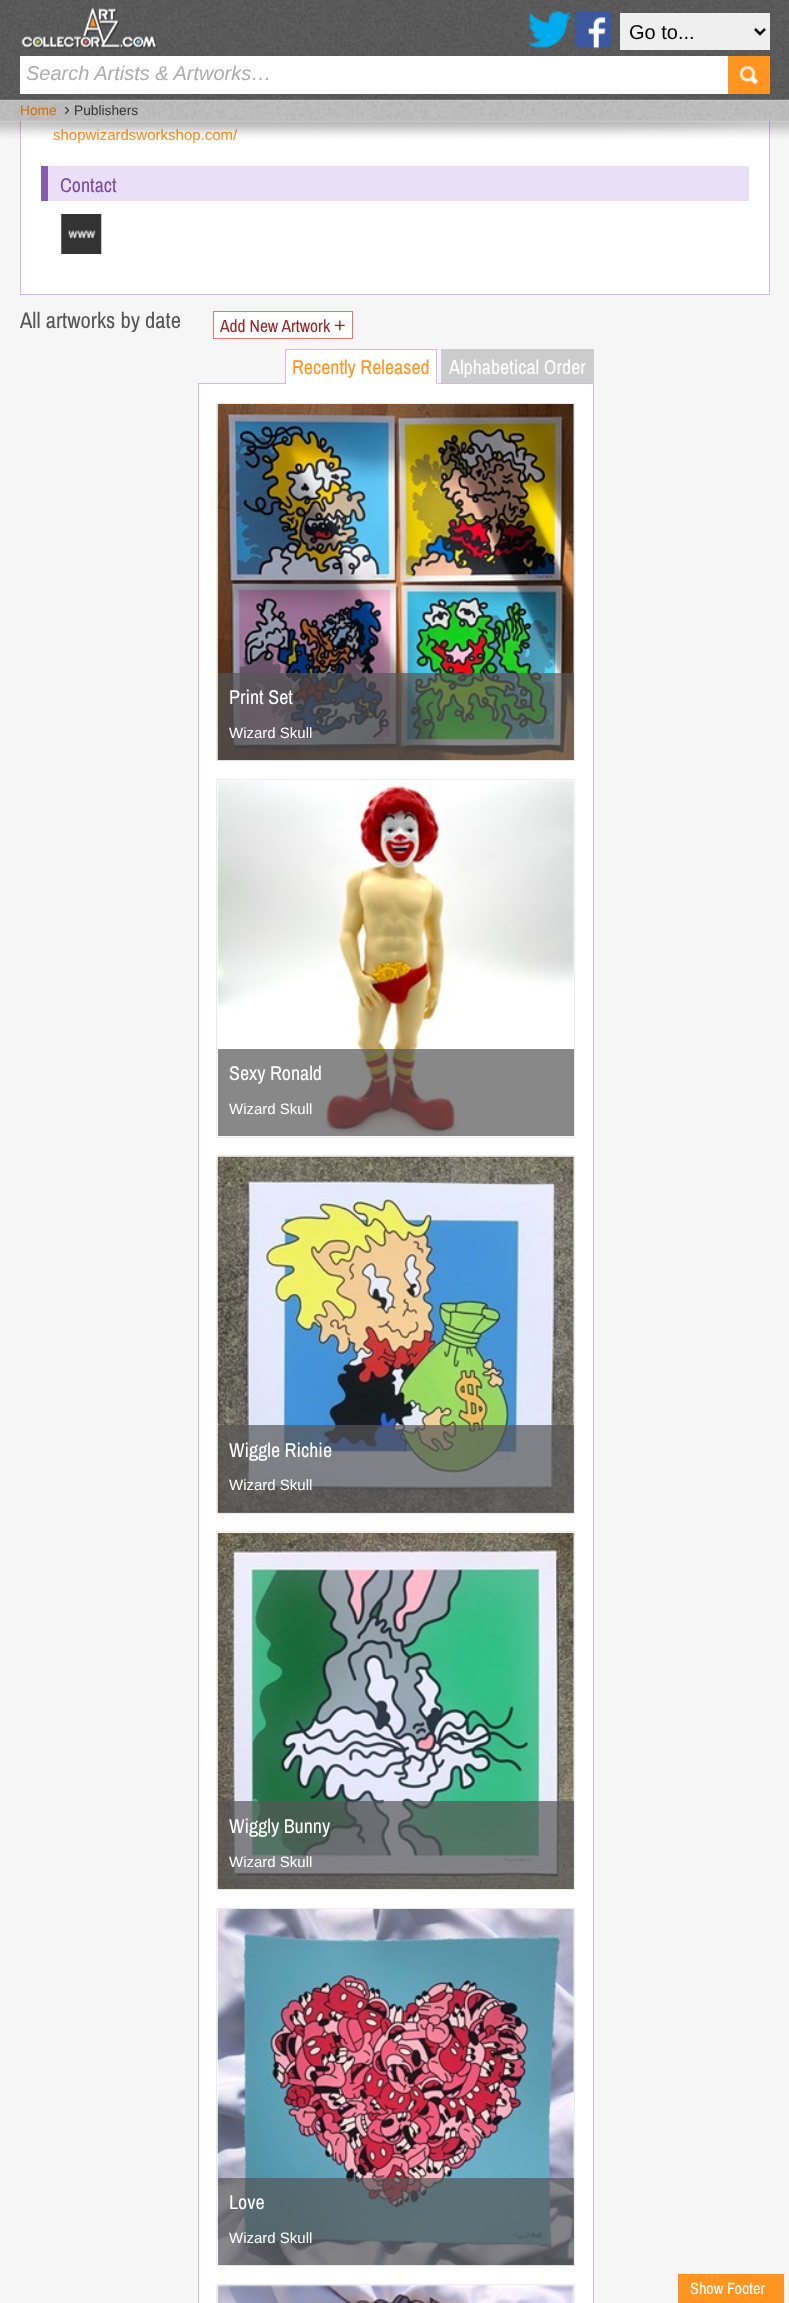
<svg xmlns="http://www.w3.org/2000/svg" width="789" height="2303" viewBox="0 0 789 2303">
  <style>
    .t1 { font: 20px Liberation Sans; fill: #000; }
    .t2 { font: italic 20px Liberation Sans; fill: #adadad; }
    .t3 { font: 13.75px Liberation Sans; fill: #c77011; }
    .t4 { font: 17.5px Liberation Sans; fill: #333; }
    .t5 { font: 13.75px Liberation Sans; fill: #333; }
    .t6 { font: 15px Liberation Sans; fill: #ff9420; }
    .t7 { font: 20px Archivo Narrow; fill: #794aa4; }
    .t8 { font: 22.5px Archivo Narrow; fill: #555; }
    .t9 { font: 17.5px Archivo Narrow; fill: #962525; }
    .t10 { font: 20px Liberation Sans; fill: #962525; }
    .t11 { font: 20px Archivo Narrow; fill: #ff9420; }
    .t12 { font: 20px Archivo Narrow; fill: #fff; }
    .t13 { font: 15px Liberation Sans; fill: #fff; }
    .t14 { font: 16.25px Archivo Narrow; fill: #fff; }
  </style>
  <rect width="100%" height="100%" fill="#f6f6f6"/>
  <image x="0" y="0" width="789" height="100" href="images/1.png"/>
  <image x="21" y="7" width="136" height="42" href="images/2.png"/>
  <image x="527" y="11" width="45" height="38" href="images/3.png"/>
  <image x="575" y="11" width="37" height="38" href="images/4.png"/>
  <rect x="620" y="13" width="150" height="37" fill="#efefef"/>
  <path d="M755 29L760 34L765 29" fill="none" stroke="#000" stroke-width="2.5"/>
  <text x="629" y="39" class="t1">Go to...</text>
  <rect x="20" y="56" width="708" height="38" fill="#fff"/>
  <text x="26" y="80" class="t2">Search Artists &amp; Artworks…</text>
  <rect x="728" y="56" width="42" height="38" fill="#ff9420"/>
  <image x="739" y="65" width="19" height="20" href="images/5.png"/>
  <rect x="21" y="121" width="748" height="173" fill="#fff"/>
  <rect x="20.5" y="103.5" width="749" height="191" fill="none" stroke="#d7b4f7"/>
  <image x="0" y="99" width="789" height="21" href="images/6.png"/>
  <rect x="0" y="120" width="789" height="1" fill="#bfbfbf"/>
  <text x="20" y="115" class="t3">Home</text>
  <text x="64" y="115" class="t4">›</text>
  <text x="74" y="115" class="t5">Publishers</text>
  <text x="53" y="140" class="t6">shopwizardsworkshop.com/</text>
  <image x="0" y="121" width="789" height="18" href="images/7.png"/>
  <rect x="48" y="166" width="701" height="35" fill="#ebdff7"/>
  <rect x="41" y="166" width="7" height="35" fill="#885bb2"/>
  <text x="60" y="192" class="t7">Contact</text>
  <image x="61" y="214" width="41" height="40" href="images/8.png"/>
  <text x="20" y="328" class="t8">All artworks by date</text>
  <rect x="213.5" y="311.5" width="139" height="27" fill="#fff" stroke="#e77272"/>
  <text x="220" y="332" class="t9">Add New Artwork</text>
  <text x="334" y="332" class="t10">+</text>
  <rect x="198.5" y="383.5" width="395" height="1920" fill="#fff" stroke="#d7b4f7"/>
  <rect x="286" y="350" width="152" height="34" fill="#fff"/>
  <rect x="285" y="349" width="153" height="1" fill="#d7b4f7"/>
  <rect x="436" y="349" width="1" height="35" fill="#d7b4f7"/>
  <rect x="285" y="349" width="1" height="35" fill="#d7b4f7"/>
  <text x="292" y="374" class="t11">Recently Released</text>
  <rect x="441" y="349" width="153" height="34" fill="#ccc"/>
  <text x="449" y="374" class="t12">Alphabetical Order</text>
  <rect x="216.5" y="403.5" width="358" height="357" fill="none" stroke="#ebebeb"/>
  <image x="217" y="404" width="357" height="357" href="images/9.png"/>
  <rect x="218" y="673" width="356" height="87" fill="#555555b3"/>
  <text x="229" y="704" class="t12">Print Set</text>
  <text x="229" y="738" class="t13">Wizard Skull</text>
  <rect x="216.5" y="779.5" width="358" height="358" fill="none" stroke="#ebebeb"/>
  <image x="217" y="780" width="357" height="356" href="images/10.png"/>
  <rect x="218" y="1049" width="356" height="87" fill="#555555b3"/>
  <text x="229" y="1080" class="t12">Sexy Ronald</text>
  <text x="229" y="1114" class="t13">Wizard Skull</text>
  <rect x="216.5" y="1155.5" width="358" height="358" fill="none" stroke="#ebebeb"/>
  <image x="217" y="1156" width="357" height="357" href="images/11.png"/>
  <rect x="218" y="1425" width="356" height="88" fill="#555555b3"/>
  <text x="229" y="1457" class="t12">Wiggle Richie</text>
  <text x="229" y="1490" class="t13">Wizard Skull</text>
  <rect x="216.5" y="1531.5" width="358" height="358" fill="none" stroke="#ebebeb"/>
  <image x="217" y="1532" width="357" height="357" href="images/12.png"/>
  <rect x="218" y="1801" width="356" height="88" fill="#555555b3"/>
  <text x="229" y="1833" class="t12">Wiggly Bunny</text>
  <text x="229" y="1867" class="t13">Wizard Skull</text>
  <rect x="216.5" y="1908.5" width="358" height="357" fill="none" stroke="#ebebeb"/>
  <image x="217" y="1909" width="357" height="357" href="images/13.png"/>
  <rect x="218" y="2178" width="356" height="87" fill="#555555b3"/>
  <text x="229" y="2209" class="t12">Love</text>
  <text x="229" y="2243" class="t13">Wizard Skull</text>
  <rect x="216.5" y="2284.5" width="358" height="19" fill="none" stroke="#ebebeb"/>
  <image x="217" y="2285" width="357" height="18" href="images/14.png"/>
  <rect x="678" y="2274" width="106" height="29" fill="#ff9420"/>
  <text x="690" y="2294" class="t14">Show Footer</text>
</svg>
